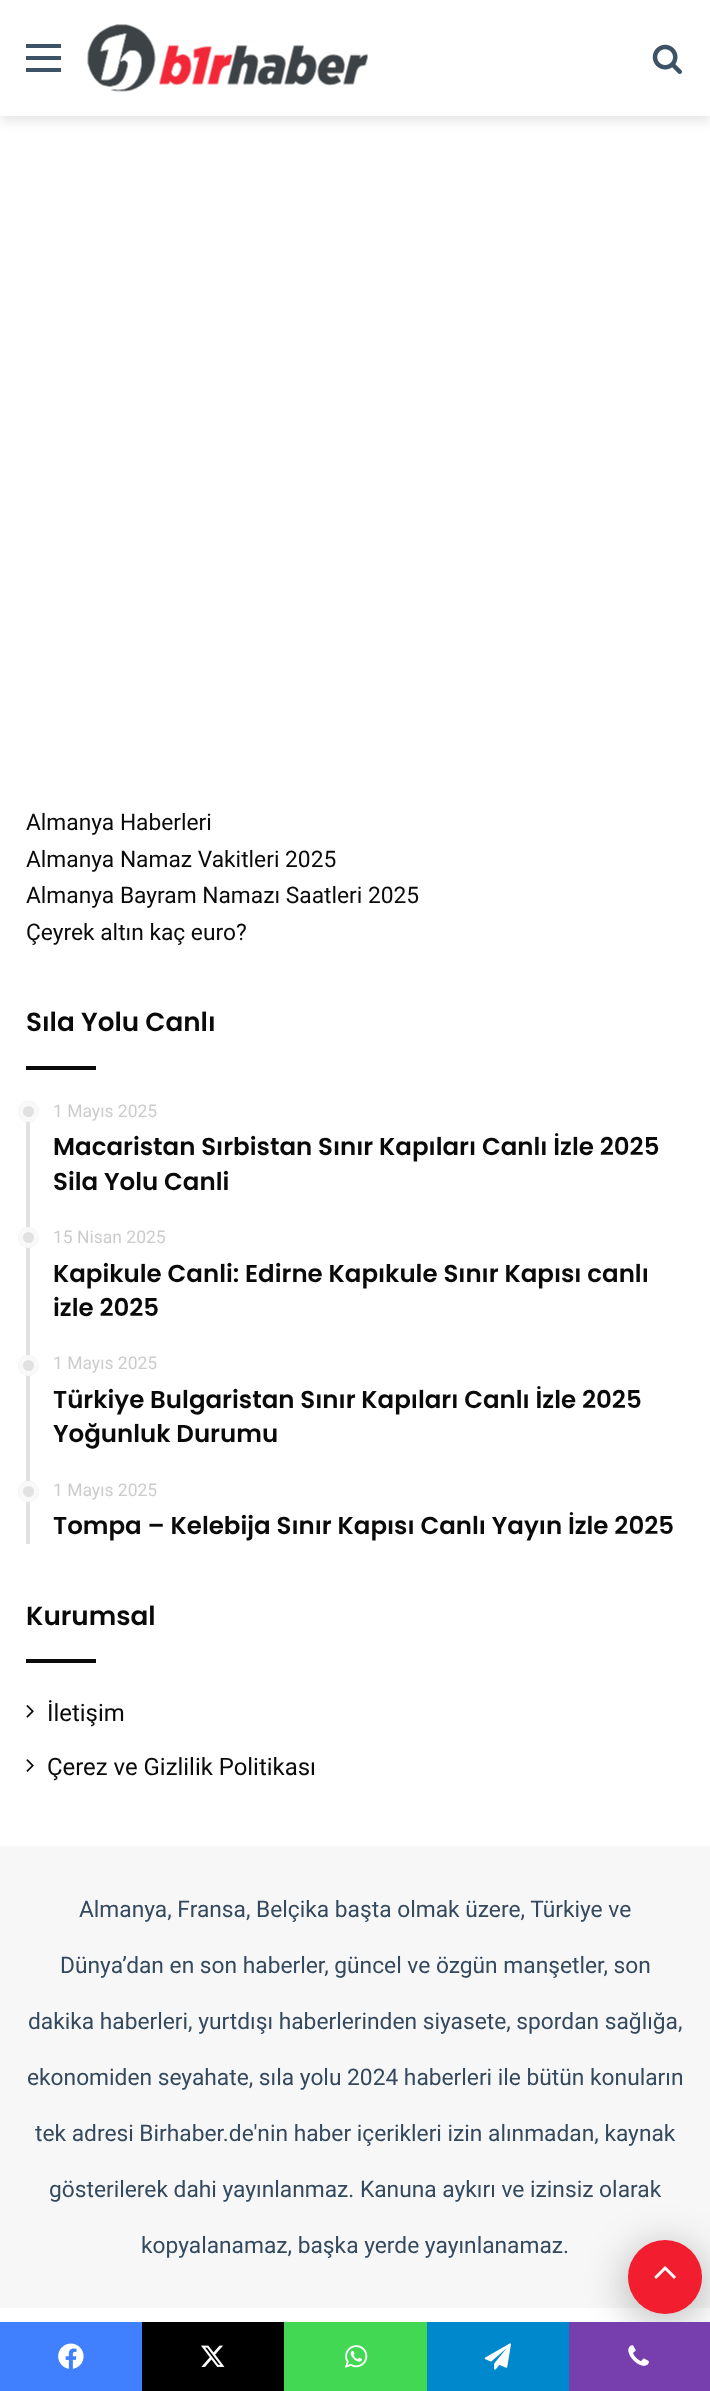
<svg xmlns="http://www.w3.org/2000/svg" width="710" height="2391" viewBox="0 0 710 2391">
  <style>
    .t1 { font: 22.75px Roboto; fill: #0a0a0a; }
    .t2 { font: 600 26.25px Poppins; fill: #0a0a0a; }
    .t3 { font: 17.5px Roboto; fill: #ccc; }
    .t4 { font: 600 24.5px Poppins; fill: #0a0a0a; }
    .t5 { font: 23.9px Roboto; fill: #0a0a0a; }
    .t6 { font: 22.75px Roboto; fill: #34495e; }
  </style>
  <rect width="100%" height="100%" fill="#fff"/>
  <rect x="0" y="5" width="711" height="116" fill="#0000001a" filter="blur(6px)"/>
  <rect x="0" y="0" width="710" height="116" fill="#fff"/>
  <rect x="26" y="56" width="35" height="4" fill="#3e5266"/>
  <rect x="26" y="44" width="35" height="4" fill="#3e5266"/>
  <rect x="26" y="68" width="35" height="4" fill="#3e5266"/>
  <image x="87" y="24" width="281" height="68" href="images/1.png"/>
  <image x="652" y="44" width="30" height="30" href="images/2.png"/>
  <text x="26" y="830" class="t1">Almanya Haberleri</text>
  <text x="26" y="867" class="t1">Almanya Namaz Vakitleri 2025</text>
  <text x="26" y="903" class="t1">Almanya Bayram Namazı Saatleri 2025</text>
  <text x="26" y="940" class="t1">Çeyrek altın kaç euro?</text>
  <text x="26" y="1031" class="t2">Sıla Yolu Canlı</text>
  <rect x="26" y="1066" width="70" height="4" fill="#0a0a0a"/>
  <rect x="26" y="1101" width="4" height="443" fill="#e1e1e1"/>
  <circle cx="28.5" cy="1111.5" r="10.5" fill="#e1e1e1"/>
  <circle cx="28.5" cy="1111.5" r="8" fill="none" stroke="#ffffffcc" stroke-width="5"/>
  <text x="53" y="1117" class="t3">1 Mayıs 2025</text>
  <text x="53" y="1155" class="t4">Macaristan Sırbistan Sınır Kapıları Canlı İzle 2025</text>
  <text x="53" y="1190" class="t4">Sila Yolu Canli</text>
  <circle cx="28.5" cy="1237.5" r="10.5" fill="#e1e1e1"/>
  <circle cx="28.5" cy="1237.5" r="8" fill="none" stroke="#ffffffcc" stroke-width="5"/>
  <text x="53" y="1243" class="t3">15 Nisan 2025</text>
  <text x="53" y="1282" class="t4">Kapikule Canli: Edirne Kapıkule Sınır Kapısı canlı</text>
  <text x="53" y="1316" class="t4">izle 2025</text>
  <circle cx="28.5" cy="1365.5" r="10.5" fill="#e1e1e1"/>
  <circle cx="28.5" cy="1365.5" r="8" fill="none" stroke="#ffffffcc" stroke-width="5"/>
  <text x="53" y="1369" class="t3">1 Mayıs 2025</text>
  <text x="53" y="1408" class="t4">Türkiye Bulgaristan Sınır Kapıları Canlı İzle 2025</text>
  <text x="53" y="1442" class="t4">Yoğunluk Durumu</text>
  <circle cx="28.5" cy="1491.5" r="10.5" fill="#e1e1e1"/>
  <circle cx="28.5" cy="1491.5" r="8" fill="none" stroke="#ffffffcc" stroke-width="5"/>
  <text x="53" y="1496" class="t3">1 Mayıs 2025</text>
  <text x="53" y="1534" class="t4">Tompa – Kelebija Sınır Kapısı Canlı Yayın İzle 2025</text>
  <text x="26" y="1625" class="t2">Kurumsal</text>
  <rect x="26" y="1659" width="70" height="4" fill="#0a0a0a"/>
  <image x="26" y="1705" width="8" height="13" href="images/3.png"/>
  <text x="47" y="1721" class="t5">İletişim</text>
  <image x="26" y="1759" width="8" height="13" href="images/4.png"/>
  <text x="47" y="1775" class="t5">Çerez ve Gizlilik Politikası</text>
  <rect x="0" y="1846" width="710" height="462" fill="#f7f7f7"/>
  <text x="79" y="1917" class="t6">Almanya, Fransa, Belçika başta olmak üzere, Türkiye ve</text>
  <text x="60" y="1973" class="t6">Dünya’dan en son haberler, güncel ve özgün manşetler, son</text>
  <text x="28" y="2029" class="t6">dakika haberleri, yurtdışı haberlerinden siyasete, spordan sağlığa,</text>
  <text x="27" y="2085" class="t6">ekonomiden seyahate, sıla yolu 2024 haberleri ile bütün konuların</text>
  <text x="35" y="2141" class="t6">tek adresi Birhaber.de'nin haber içerikleri izin alınmadan, kaynak</text>
  <text x="49" y="2197" class="t6">gösterilerek dahi yayınlanmaz. Kanuna aykırı ve izinsiz olarak</text>
  <text x="141" y="2253" class="t6">kopyalanamaz, başka yerde yayınlanamaz.</text>
  <rect x="628" y="2249" width="74" height="73" rx="36.5" fill="#0000004d" filter="blur(22px)"/>
  <circle cx="665" cy="2277" r="37" fill="#f21d2f"/>
  <image x="654" y="2266" width="22" height="13" href="images/5.png"/>
  <rect x="0" y="2322" width="142" height="69" fill="#4080ff"/>
  <image x="58" y="2343" width="26" height="26" href="images/6.png"/>
  <rect x="142" y="2322" width="142" height="69" fill="#000"/>
  <image x="201" y="2345" width="24" height="22" href="images/7.png"/>
  <rect x="284" y="2322" width="143" height="69" fill="#43d854"/>
  <image x="344" y="2345" width="24" height="23" href="images/8.png"/>
  <rect x="427" y="2322" width="142" height="69" fill="#08c"/>
  <image x="484" y="2343" width="27" height="27" href="images/9.png"/>
  <rect x="569" y="2322" width="141" height="69" fill="#773ead"/>
  <image x="628" y="2345" width="21" height="21" href="images/10.png"/>
</svg>
